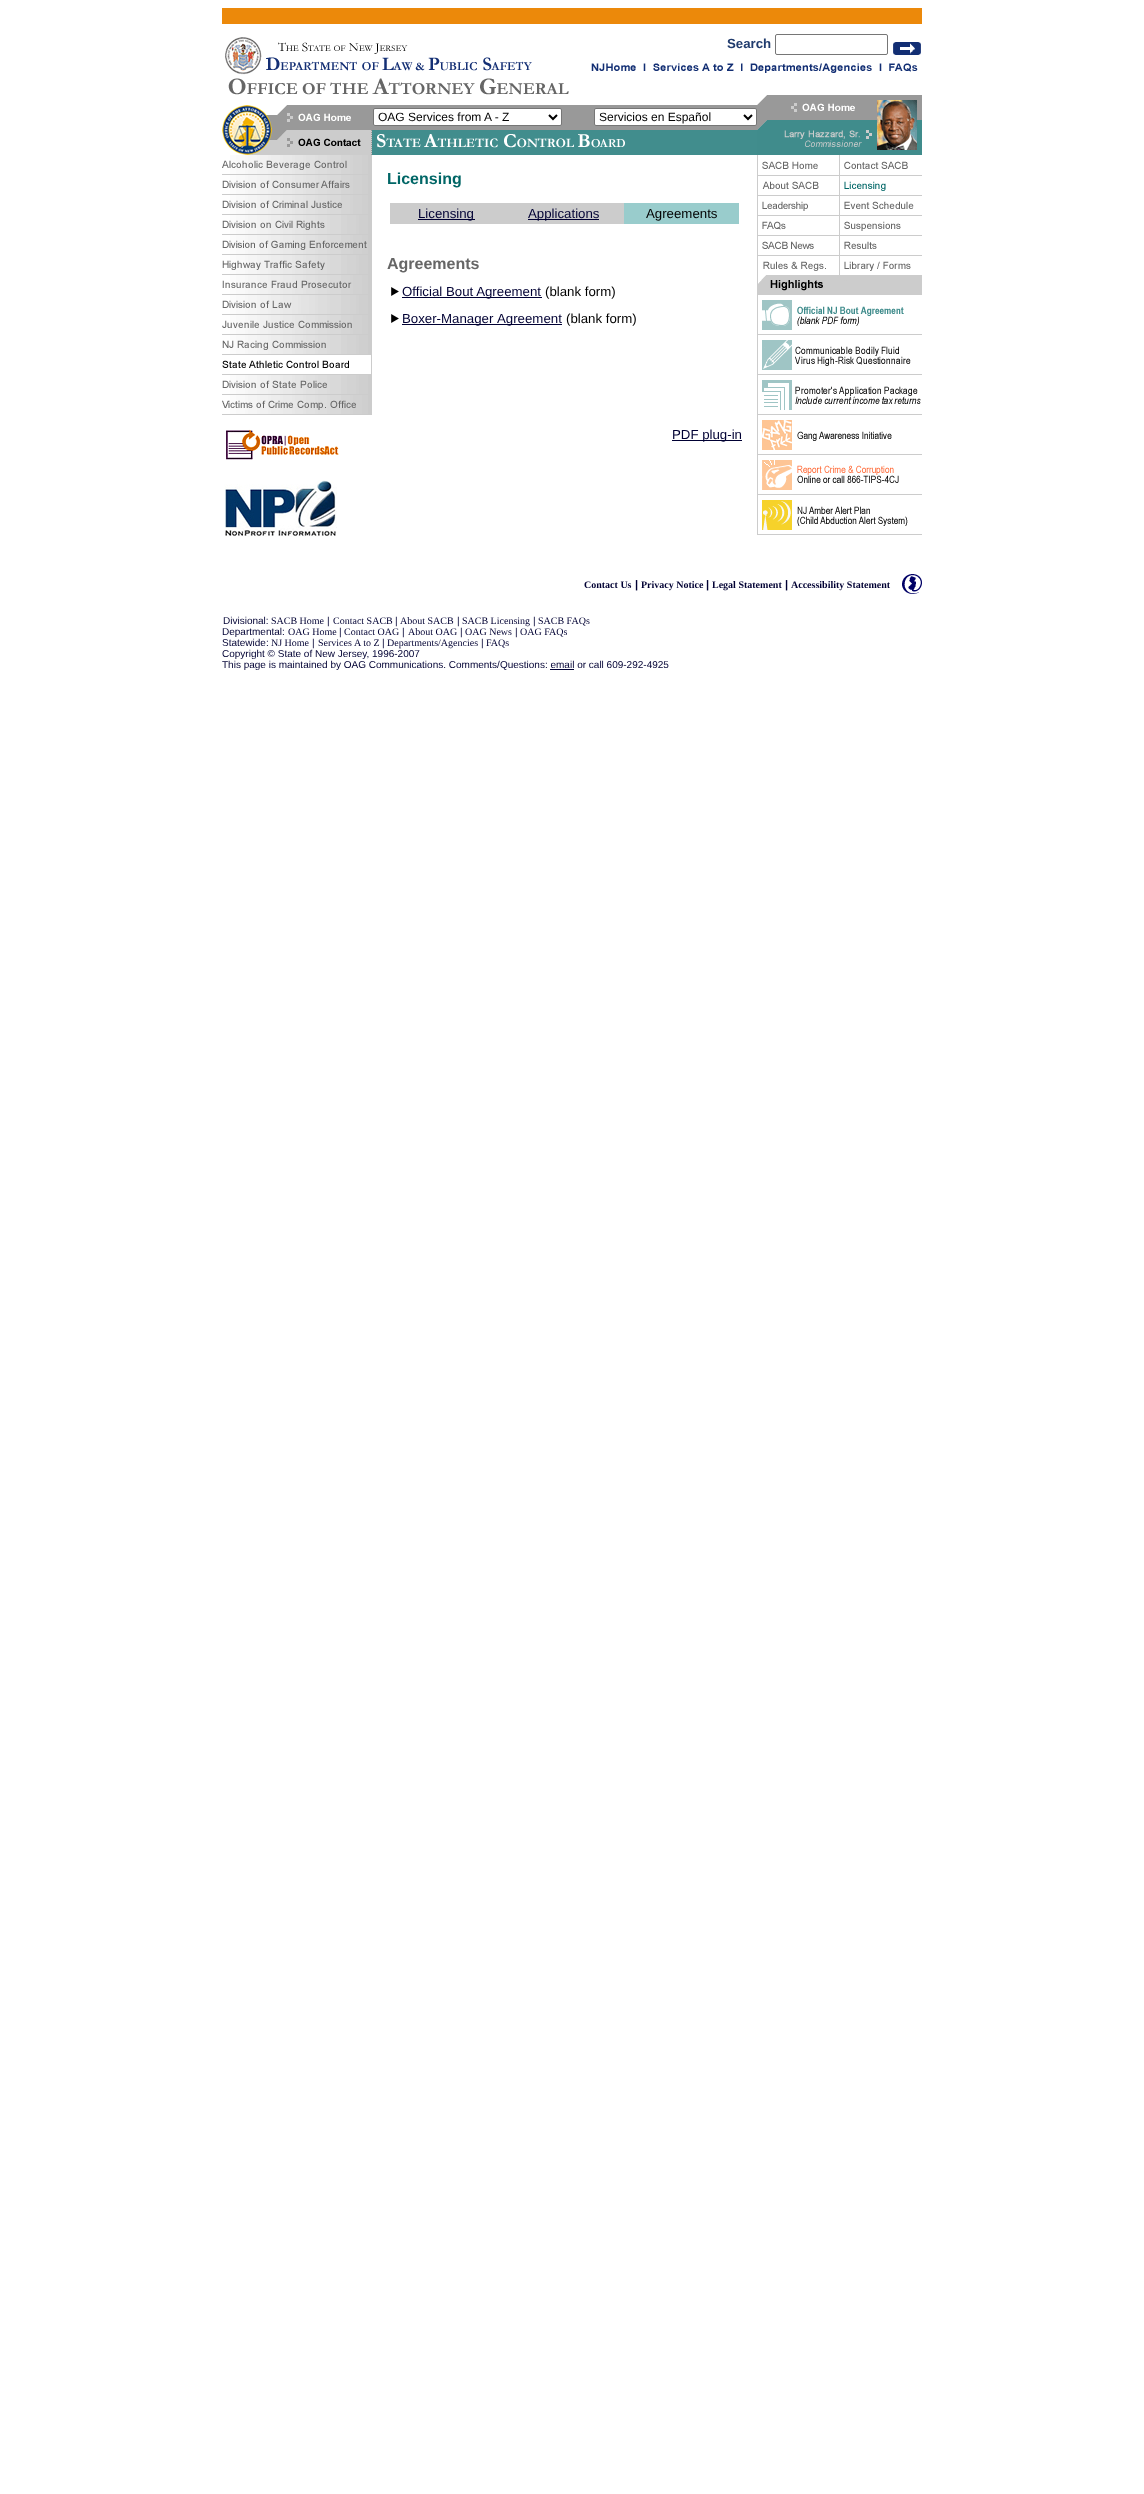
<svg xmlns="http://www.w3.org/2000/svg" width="1144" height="2494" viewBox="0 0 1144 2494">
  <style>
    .t1 { font: bold 13.25px Liberation Sans; fill: #203b6d; }
    .t2 { font: 12px Liberation Sans; fill: #000; }
    .t3 { font: bold 16px Liberation Sans; fill: #066; }
    .t4 { font: 13.25px Liberation Sans; fill: #003; }
    .t5 { font: 13.25px Liberation Sans; fill: #000; }
    .t6 { font: bold 16px Liberation Sans; fill: #666; }
    .t7 { font: bold 10px Liberation Serif; fill: #003; }
    .t8 { font: bold 11px Liberation Sans; fill: #003; }
    .t9 { font: 10px Liberation Sans; fill: #003; }
    .t10 { font: 10px Liberation Serif; fill: #003; }
  </style>
  <rect width="100%" height="100%" fill="#fff"/>
  <rect x="222" y="8" width="700" height="16" fill="#ec890a"/>
  <image x="225" y="37" width="307" height="38" href="images/1.png"/>
  <text x="727" y="48" class="t1">Search</text>
  <rect x="775.5" y="34.5" width="112" height="20" rx="1.5" fill="none" stroke="#767676"/>
  <image x="893" y="42" width="28" height="13" href="images/2.png"/>
  <image x="591" y="63" width="327" height="10" href="images/3.png"/>
  <image x="228" y="78" width="341" height="17" href="images/4.png"/>
  <image x="222" y="105" width="150" height="25" href="images/5.png"/>
  <image x="222" y="130" width="60" height="25" href="images/6.png"/>
  <image x="282" y="130" width="90" height="25" href="images/7.png"/>
  <image x="222" y="155" width="150" height="20" href="images/8.png"/>
  <image x="222" y="175" width="150" height="20" href="images/9.png"/>
  <image x="222" y="195" width="150" height="20" href="images/10.png"/>
  <image x="222" y="215" width="150" height="20" href="images/11.png"/>
  <image x="222" y="235" width="150" height="20" href="images/12.png"/>
  <image x="222" y="255" width="150" height="20" href="images/13.png"/>
  <image x="222" y="275" width="150" height="20" href="images/14.png"/>
  <image x="222" y="295" width="150" height="20" href="images/15.png"/>
  <image x="222" y="315" width="150" height="20" href="images/16.png"/>
  <image x="222" y="335" width="150" height="20" href="images/17.png"/>
  <image x="222" y="355" width="150" height="20" href="images/18.png"/>
  <image x="222" y="375" width="150" height="20" href="images/19.png"/>
  <image x="222" y="395" width="150" height="20" href="images/20.png"/>
  <image x="226" y="429" width="113" height="31" href="images/21.png"/>
  <image x="224" y="480" width="113" height="57" href="images/22.png"/>
  <rect x="372" y="105" width="385" height="25" fill="#999"/>
  <rect x="373.5" y="108.5" width="188" height="17" rx="1.5" fill="#fff" stroke="#767676"/>
  <path d="M549 115L553 119L557 115" fill="none" stroke="#000" stroke-width="2"/>
  <text x="378" y="121" class="t2">OAG Services from A - Z</text>
  <rect x="594.5" y="108.5" width="162" height="17" rx="1.5" fill="#fff" stroke="#767676"/>
  <path d="M744 115L748 119L752 115" fill="none" stroke="#000" stroke-width="2"/>
  <text x="599" y="121" class="t2">Servicios en Español</text>
  <image x="372" y="130" width="385" height="25" href="images/23.png"/>
  <text x="387" y="184" class="t3">Licensing</text>
  <rect x="390" y="203" width="234" height="21" fill="#ccc"/>
  <rect x="418" y="219" width="57" height="1" fill="#003"/>
  <text x="418" y="218" class="t4">Licensing</text>
  <rect x="528" y="219" width="71" height="1" fill="#003"/>
  <text x="528" y="218" class="t4">Applications</text>
  <rect x="624" y="203" width="115" height="21" fill="#9cc"/>
  <text x="646" y="218" class="t5">Agreements</text>
  <text x="387" y="269" class="t6">Agreements</text>
  <image x="391" y="287" width="8" height="9" href="images/24.png"/>
  <rect x="402" y="297" width="140" height="1" fill="#003"/>
  <text x="402" y="296" class="t4">Official Bout Agreement</text>
  <text x="545" y="296" class="t5">(blank form)</text>
  <image x="391" y="314" width="8" height="9" href="images/24.png"/>
  <rect x="402" y="324" width="160" height="1" fill="#003"/>
  <text x="402" y="323" class="t4">Boxer-Manager</text>
  <text x="497" y="323" class="t4">Agreement</text>
  <text x="566" y="323" class="t5">(blank form)</text>
  <rect x="672" y="440" width="70" height="1" fill="#003"/>
  <text x="672" y="439" class="t4">PDF plug-in</text>
  <image x="757" y="95" width="115" height="35" href="images/25.png"/>
  <image x="872" y="95" width="50" height="60" href="images/26.png"/>
  <image x="757" y="130" width="115" height="25" href="images/27.png"/>
  <image x="757" y="155" width="83" height="20" href="images/28.png"/>
  <image x="844" y="161" width="64" height="8" href="images/29.png"/>
  <image x="757" y="175" width="83" height="20" href="images/30.png"/>
  <image x="840" y="175" width="82" height="16" href="images/31.png"/>
  <image x="757" y="195" width="83" height="20" href="images/32.png"/>
  <image x="840" y="195" width="82" height="14" href="images/33.png"/>
  <image x="757" y="215" width="83" height="20" href="images/34.png"/>
  <image x="840" y="215" width="82" height="16" href="images/35.png"/>
  <image x="757" y="235" width="83" height="20" href="images/36.png"/>
  <image x="840" y="235" width="82" height="14" href="images/37.png"/>
  <image x="757" y="255" width="83" height="20" href="images/38.png"/>
  <image x="840" y="255" width="82" height="16" href="images/39.png"/>
  <image x="757" y="275" width="165" height="20" href="images/40.png"/>
  <image x="757" y="295" width="165" height="40" href="images/41.png"/>
  <image x="757" y="335" width="165" height="40" href="images/42.png"/>
  <image x="757" y="375" width="165" height="40" href="images/43.png"/>
  <image x="757" y="415" width="165" height="40" href="images/44.png"/>
  <image x="757" y="455" width="165" height="40" href="images/45.png"/>
  <image x="757" y="495" width="165" height="40" href="images/46.png"/>
  <text x="584" y="588" class="t7">Contact Us</text>
  <text x="635" y="588" class="t8">|</text>
  <text x="641" y="588" class="t7">Privacy Notice</text>
  <text x="706" y="588" class="t8">|</text>
  <text x="712" y="588" class="t7">Legal Statement</text>
  <text x="785" y="588" class="t8">|</text>
  <text x="791" y="588" class="t7">Accessibility Statement</text>
  <image x="902" y="574" width="20" height="20" href="images/47.png"/>
  <text x="223" y="624" class="t9">Divisional:</text>
  <text x="271" y="624" class="t10">SACB Home</text>
  <text x="327" y="624" class="t9">|</text>
  <text x="333" y="624" class="t10">Contact SACB</text>
  <text x="395" y="624" class="t9">|</text>
  <text x="400" y="624" class="t10">About SACB</text>
  <text x="457" y="624" class="t9">|</text>
  <text x="462" y="624" class="t10">SACB Licensing</text>
  <text x="533" y="624" class="t9">|</text>
  <text x="538" y="624" class="t10">SACB FAQs</text>
  <text x="222" y="635" class="t9">Departmental:</text>
  <text x="288" y="635" class="t10">OAG Home</text>
  <text x="339" y="635" class="t9">|</text>
  <text x="344" y="635" class="t10">Contact OAG</text>
  <text x="402" y="635" class="t9">|</text>
  <text x="408" y="635" class="t10">About OAG</text>
  <text x="460" y="635" class="t9">|</text>
  <text x="465" y="635" class="t10">OAG News</text>
  <text x="515" y="635" class="t9">|</text>
  <text x="520" y="635" class="t10">OAG FAQs</text>
  <text x="222" y="646" class="t9">Statewide:</text>
  <text x="271" y="646" class="t10">NJ Home</text>
  <text x="312" y="646" class="t9">|</text>
  <text x="318" y="646" class="t10">Services</text>
  <text x="354" y="646" class="t10">A to Z</text>
  <text x="382" y="646" class="t9">|</text>
  <text x="387" y="646" class="t10">Departments/Agencies</text>
  <text x="481" y="646" class="t9">|</text>
  <text x="486" y="646" class="t10">FAQs</text>
  <text x="222" y="657" class="t9">Copyright © State of New Jersey, 1996-2007</text>
  <text x="222" y="668" class="t9">This page is maintained by OAG Communications. Comments/Questions: email or call 609-292-4925</text>
  <rect x="550" y="669" width="24" height="1" fill="#003"/>
</svg>
